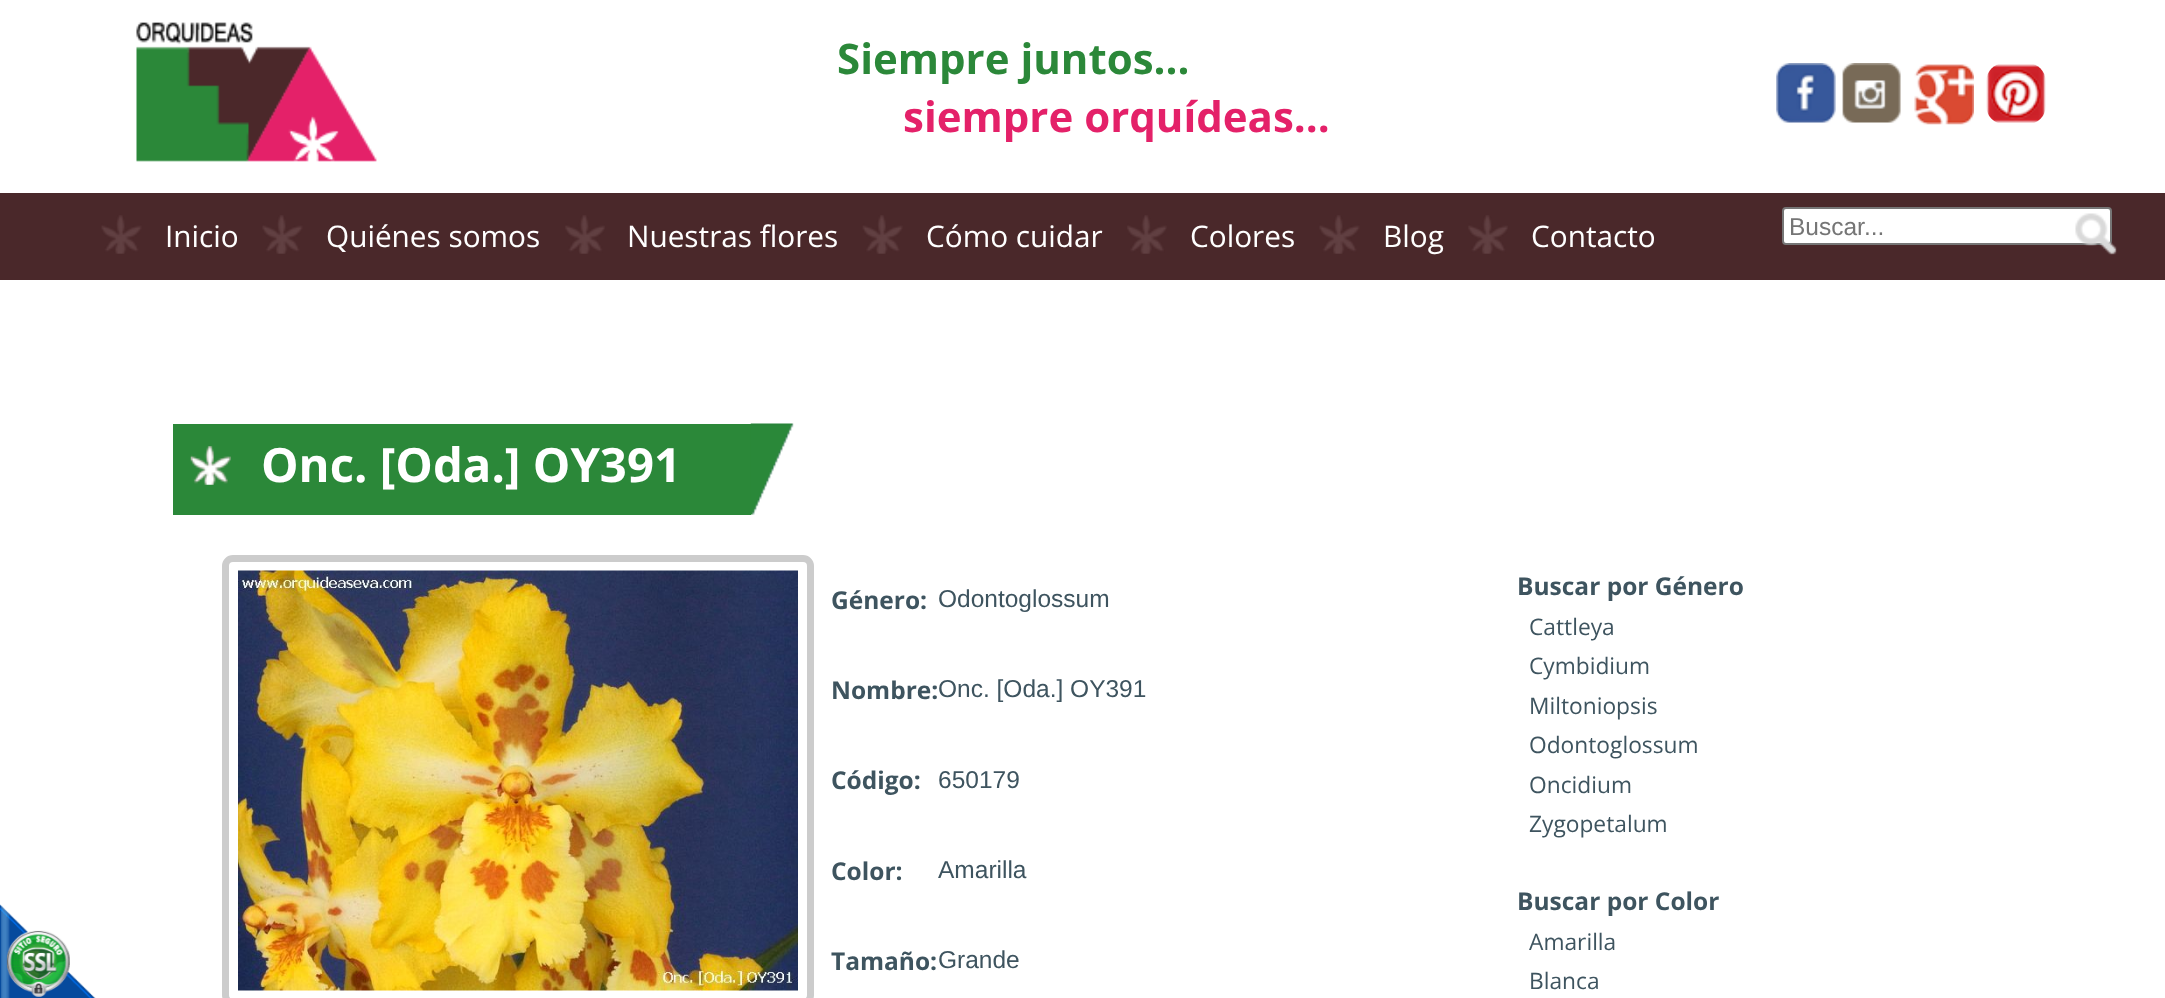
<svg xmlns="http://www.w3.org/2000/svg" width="2165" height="998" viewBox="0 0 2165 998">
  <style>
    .t1 { font: bold 42px Open Sans; fill: #2b8839; }
    .t2 { font: bold 42px Open Sans; fill: #e42169; }
    .t3 { font: 29.75px Open Sans; fill: #fff; }
    .t4 { font: 24.5px Liberation Sans; fill: #757575; }
    .t5 { font: bold 47.25px Open Sans; fill: #fff; }
    .t6 { font: bold 24.5px Open Sans; fill: #3e545f; }
    .t7 { font: 24.5px Liberation Sans; fill: #3e545f; }
    .t8 { font: 22.75px Open Sans; fill: #3e545f; }
  </style>
  <rect width="100%" height="100%" fill="#fff"/>
  <image x="136" y="22" width="241" height="140" href="images/1.png"/>
  <text x="837" y="74" class="t1">Siempre juntos...</text>
  <text x="903" y="132" class="t2">siempre orquídeas...</text>
  <image x="1776" y="63" width="60" height="60" href="images/2.png"/>
  <image x="1842" y="63" width="59" height="60" href="images/3.png"/>
  <image x="1914" y="64" width="60" height="61" href="images/4.png"/>
  <image x="1986" y="64" width="60" height="59" href="images/5.png"/>
  <rect x="0" y="193" width="2165" height="87" fill="#4a282a"/>
  <image x="101" y="215" width="41" height="39" href="images/6.png"/>
  <text x="165" y="247" class="t3">Inicio</text>
  <image x="262" y="215" width="41" height="39" href="images/7.png"/>
  <text x="326" y="247" class="t3">Quiénes somos</text>
  <image x="565" y="215" width="40" height="39" href="images/8.png"/>
  <text x="627" y="247" class="t3">Nuestras flores</text>
  <image x="862" y="215" width="41" height="39" href="images/9.png"/>
  <text x="926" y="247" class="t3">Cómo cuidar</text>
  <image x="1127" y="215" width="40" height="39" href="images/10.png"/>
  <text x="1190" y="247" class="t3">Colores</text>
  <image x="1319" y="215" width="41" height="39" href="images/7.png"/>
  <text x="1383" y="247" class="t3">Blog</text>
  <image x="1468" y="215" width="40" height="39" href="images/11.png"/>
  <text x="1531" y="247" class="t3">Contacto</text>
  <rect x="1783" y="208" width="328" height="36" rx="3" fill="#fff" stroke="#767676" stroke-width="2"/>
  <text x="1789" y="235" class="t4">Buscar...</text>
  <image x="2075" y="213" width="42" height="42" href="images/12.png"/>
  <image x="0" y="904" width="96" height="94" href="images/13.png"/>
  <rect x="173" y="424" width="578" height="91" fill="#2b8839"/>
  <image x="190" y="446" width="41" height="39" href="images/14.png"/>
  <text x="261" y="482" class="t5">Onc. [Oda.] OY391</text>
  <image x="750" y="423" width="44" height="92" href="images/15.png"/>
  <rect x="225.5" y="558.5" width="585" height="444" rx="7.5" fill="none" stroke="#ccc" stroke-width="7"/>
  <image x="238" y="570" width="560" height="421" href="images/16.png"/>
  <text x="831" y="609" class="t6">Género:</text>
  <text x="938" y="607" class="t7">Odontoglossum</text>
  <text x="831" y="699" class="t6">Nombre:</text>
  <text x="938" y="697" class="t7">Onc. [Oda.] OY391</text>
  <text x="831" y="789" class="t6">Código:</text>
  <text x="938" y="788" class="t7">650179</text>
  <text x="831" y="880" class="t6">Color:</text>
  <text x="938" y="878" class="t7">Amarilla</text>
  <text x="831" y="970" class="t6">Tamaño:</text>
  <text x="938" y="968" class="t7">Grande</text>
  <text x="1517" y="595" class="t6">Buscar por Género</text>
  <text x="1529" y="635" class="t8">Cattleya</text>
  <text x="1529" y="674" class="t8">Cymbidium</text>
  <text x="1529" y="714" class="t8">Miltoniopsis</text>
  <text x="1529" y="753" class="t8">Odontoglossum</text>
  <text x="1529" y="793" class="t8">Oncidium</text>
  <text x="1529" y="832" class="t8">Zygopetalum</text>
  <text x="1517" y="910" class="t6">Buscar por Color</text>
  <text x="1529" y="950" class="t8">Amarilla</text>
  <text x="1529" y="989" class="t8">Blanca</text>
</svg>
